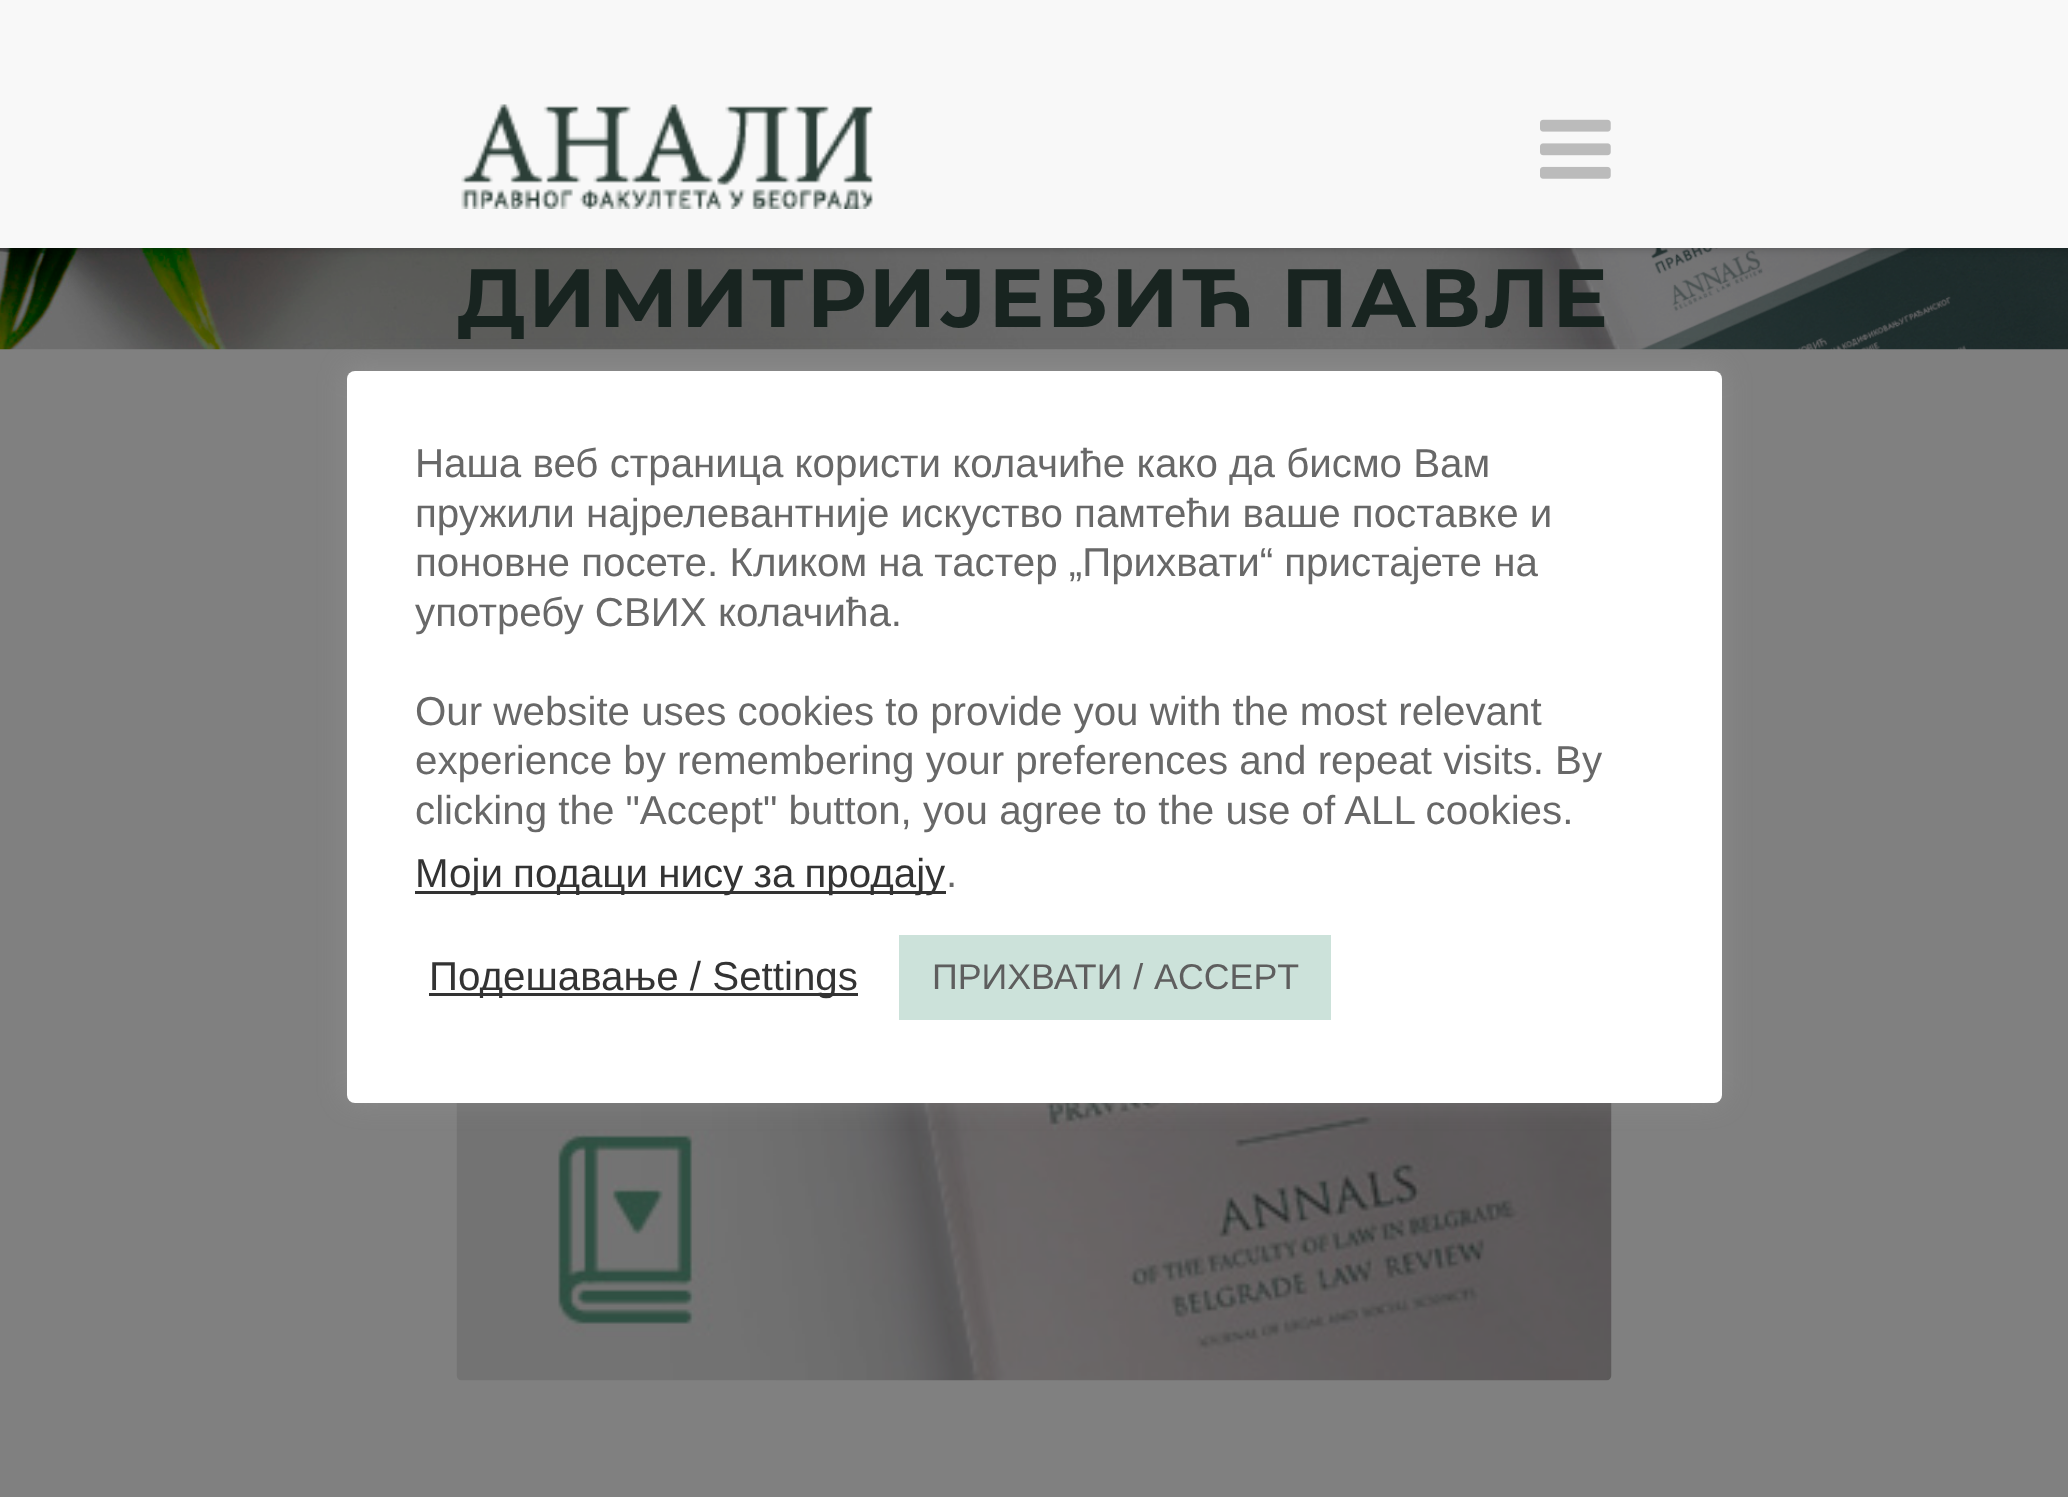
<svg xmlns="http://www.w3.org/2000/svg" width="2068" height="1497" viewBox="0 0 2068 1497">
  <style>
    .t1 { font: bold 82.5px Montserrat; letter-spacing: 2.75px; fill: #182420; }
    .t2 { font: 40.3px Liberation Sans; fill: #686868; }
    .t3 { font: 40.3px Liberation Sans; fill: #333; }
    .t4 { font: 35.75px Liberation Sans; fill: #5e5e5e; }
  </style>
  <rect width="100%" height="100%" fill="#808080"/>
  <image x="0" y="248" width="2068" height="102" href="images/3.png"/>
  <rect x="-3" y="-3" width="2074" height="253" fill="#00000029" filter="blur(3px)"/>
  <rect x="0" y="0" width="2068" height="248" fill="#f8f8f8"/>
  <image x="461" y="104" width="412" height="105" href="images/1.png"/>
  <image x="1540" y="119" width="71" height="60" href="images/2.png"/>
  <text x="457" y="327" class="t1">ДИМИТРИЈЕВИЋ ПАВЛЕ</text>
  <image x="456" y="1103" width="1156" height="278" href="images/4.png"/>
  <rect x="347" y="369" width="1375" height="731" rx="8" fill="#acabab4d" filter="blur(14px)"/>
  <rect x="347" y="371" width="1375" height="732" rx="8" fill="#fff"/>
  <text x="415" y="477" class="t2">Наша веб страница користи колачиће како да бисмо Вам</text>
  <text x="415" y="527" class="t2">пружили најрелевантније искуство памтећи ваше поставке и</text>
  <text x="415" y="576" class="t2">поновне посете. Кликом на тастер „Прихвати“ пристајете на</text>
  <text x="415" y="626" class="t2">употребу СВИХ колачића.</text>
  <text x="415" y="725" class="t2">Our website uses cookies to provide you with the most relevant</text>
  <text x="415" y="774" class="t2">experience by remembering your preferences and repeat visits. By</text>
  <text x="415" y="824" class="t2">clicking the "Accept" button, you agree to the use of ALL cookies.</text>
  <rect x="415" y="891" width="531" height="3" fill="#333"/>
  <text x="415" y="887" word-spacing="-1" class="t3">Моји подаци нису за продају</text>
  <text x="946" y="887" class="t2">.</text>
  <rect x="429" y="993" width="429" height="3" fill="#333"/>
  <text x="429" y="990" class="t3">Подешавање / Settings</text>
  <rect x="899" y="935" width="432" height="85" fill="#cce2da"/>
  <text x="932" y="989" word-spacing="1" class="t4">ПРИХВАТИ / ACCEPT</text>
</svg>
